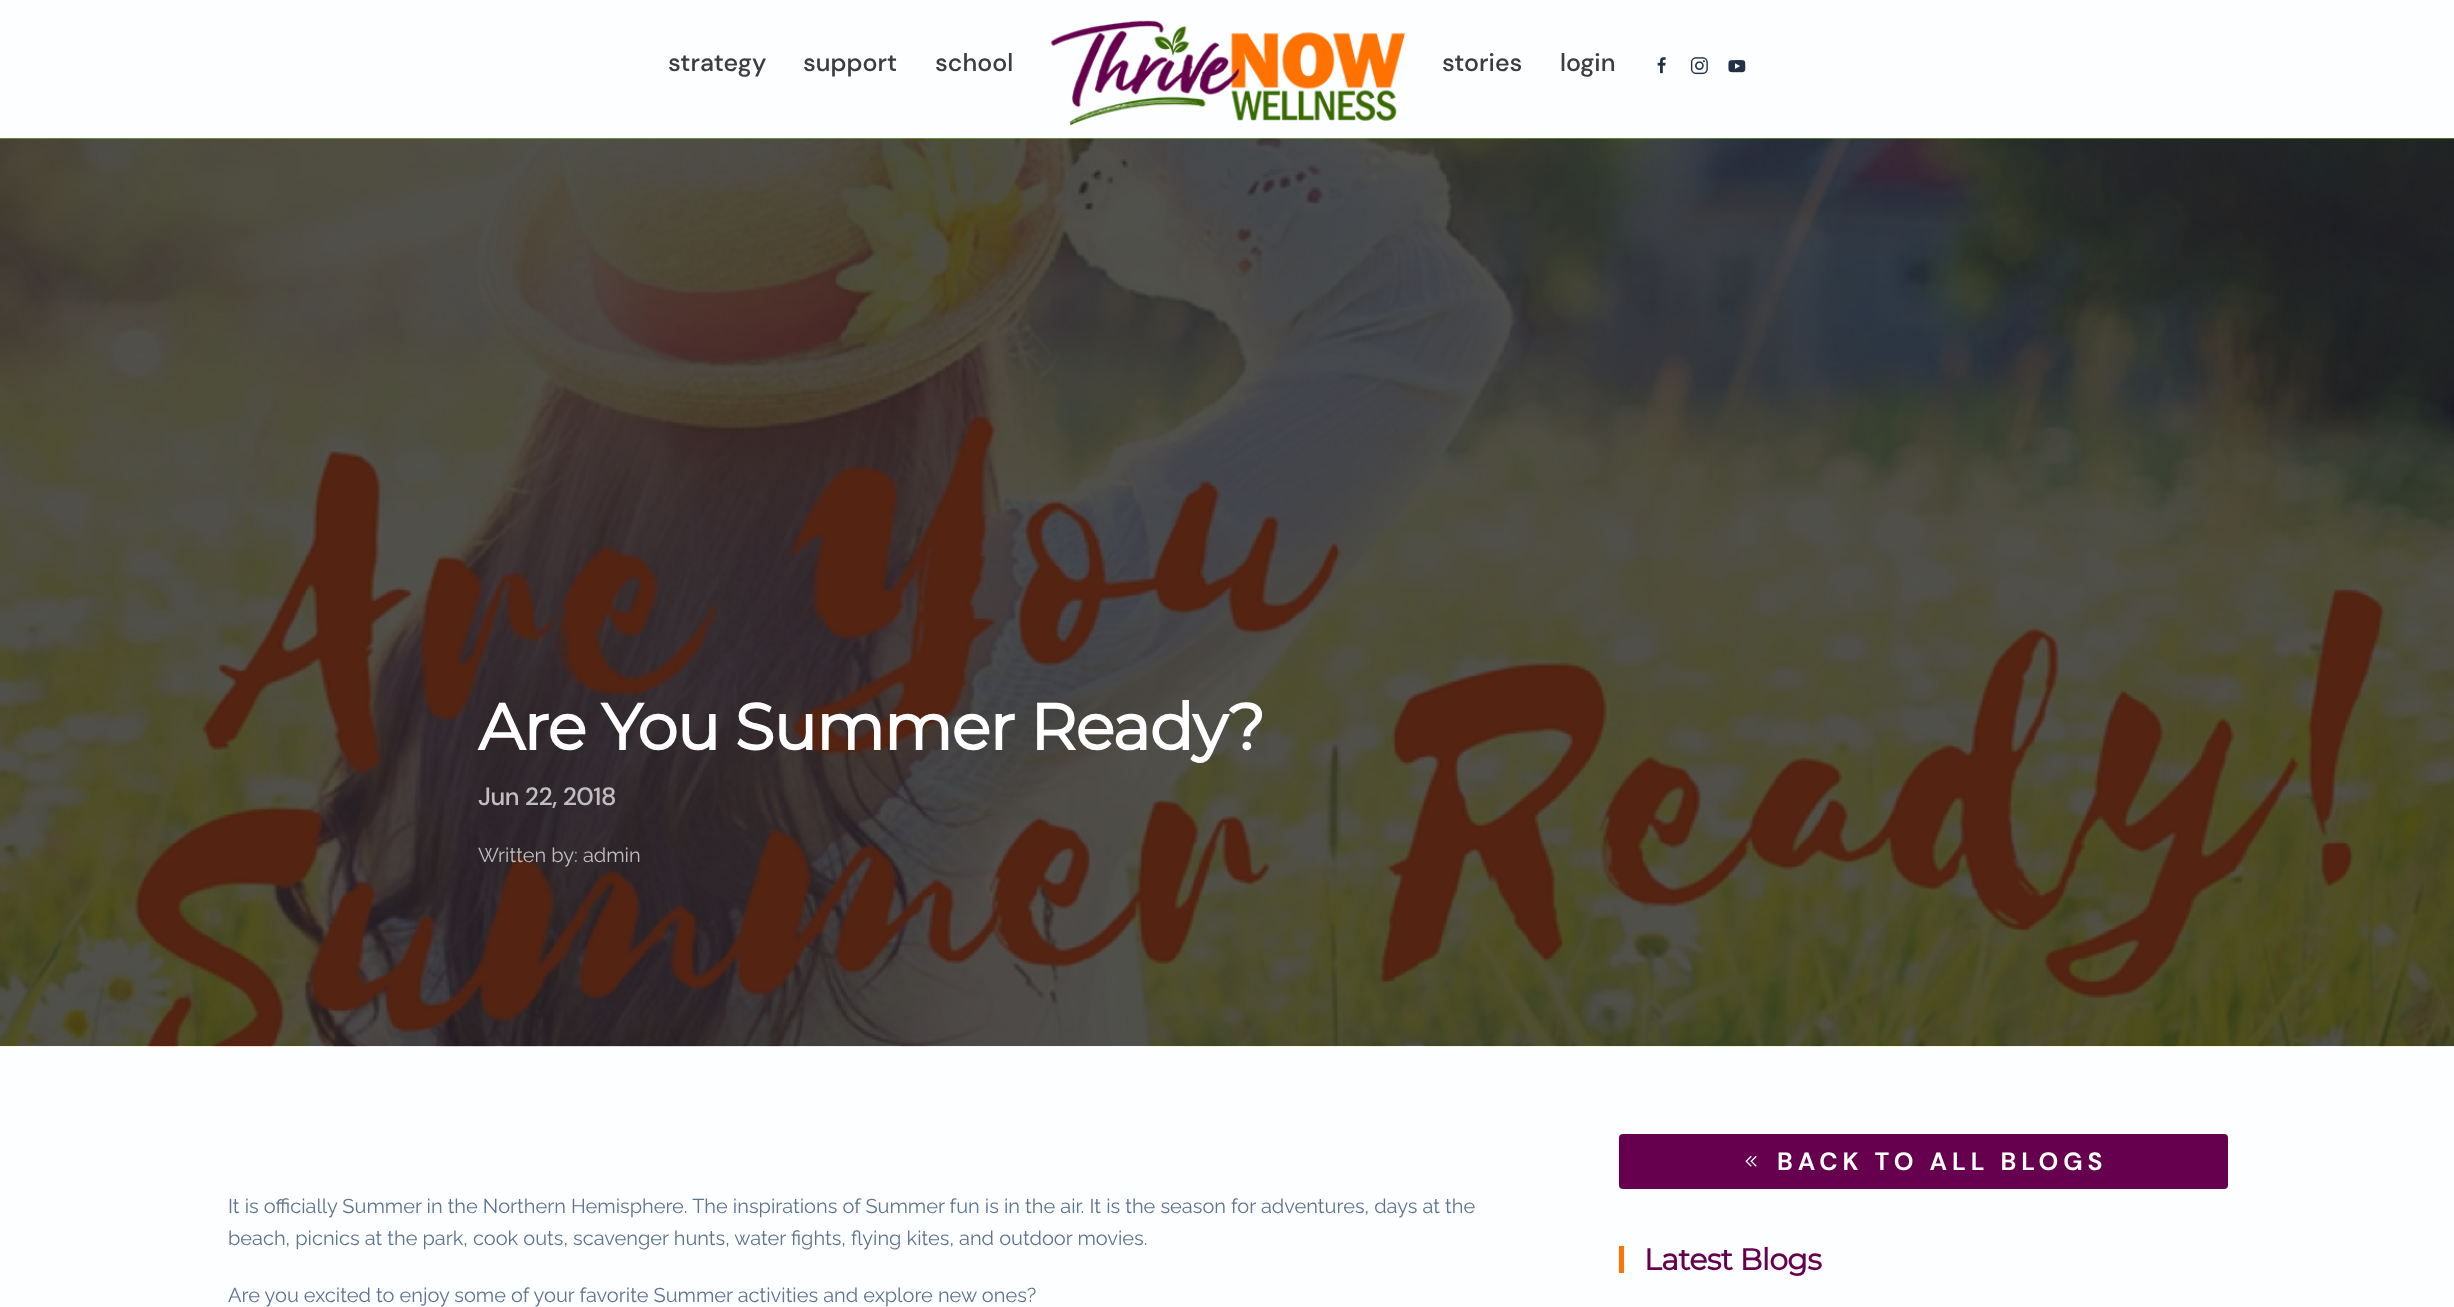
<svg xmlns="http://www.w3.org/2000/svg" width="2454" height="1307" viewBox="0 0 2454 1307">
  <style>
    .t1 { font: 500 25px DM Sans; fill: #3d3d3d; }
    .t2 { font: bold 65px Montserrat; letter-spacing: -1.3px; fill: #fff; }
    .t3 { font: 500 25px DM Sans; letter-spacing: -0.5px; fill: #c1bebf; }
    .t4 { font: 100 20px Raleway; fill: #c1bebf; }
    .t5 { font: 100 20px Raleway; fill: #5f7391; }
    .t6 { font: bold 25px DM Sans; letter-spacing: 5px; fill: #fff; }
    .t7 { font: bold 30px Montserrat; letter-spacing: -0.6px; fill: #66004e; }
  </style>
  <rect width="100%" height="100%" fill="#fdfeff"/>
  <rect x="0" y="138" width="2454" height="1" fill="#40720c"/>
  <text x="668" y="71" class="t1">strategy</text>
  <text x="803" y="71" class="t1">support</text>
  <text x="935" y="71" class="t1">school</text>
  <image x="1051" y="20" width="354" height="105" href="images/1.png"/>
  <text x="1442" y="71" class="t1">stories</text>
  <text x="1560" y="71" class="t1">login</text>
  <image x="1657" y="57" width="9" height="17" href="images/2.png"/>
  <image x="1690" y="57" width="18" height="18" href="images/3.png"/>
  <image x="1728" y="60" width="18" height="13" href="images/4.png"/>
  <image x="0" y="138" width="2454" height="909" href="images/5.png"/>
  <text x="478" y="750" class="t2">Are You Summer Ready?</text>
  <text x="478" y="805" class="t3">Jun 22, 2018</text>
  <text x="478" y="862" class="t4">Written by: admin</text>
  <text x="228" y="1213" class="t5">It is officially Summer in the Northern Hemisphere. The inspirations of Summer fun is in the air. It is the season for adventures, days at the</text>
  <text x="228" y="1245" class="t5">beach, picnics at the park, cook outs, scavenger hunts, water fights, flying kites, and outdoor movies.</text>
  <text x="228" y="1302" class="t5">Are you excited to enjoy some of your favorite Summer activities and explore new ones?</text>
  <rect x="1619" y="1134" width="609" height="55" rx="4" fill="#66004e"/>
  <image x="1745" y="1155" width="12" height="12" href="images/6.png"/>
  <text x="1777" y="1170" class="t6">BACK TO ALL BLOGS</text>
  <rect x="1619" y="1246" width="5" height="27" fill="#ff7200"/>
  <text x="1644" y="1270" class="t7">Latest Blogs</text>
</svg>
